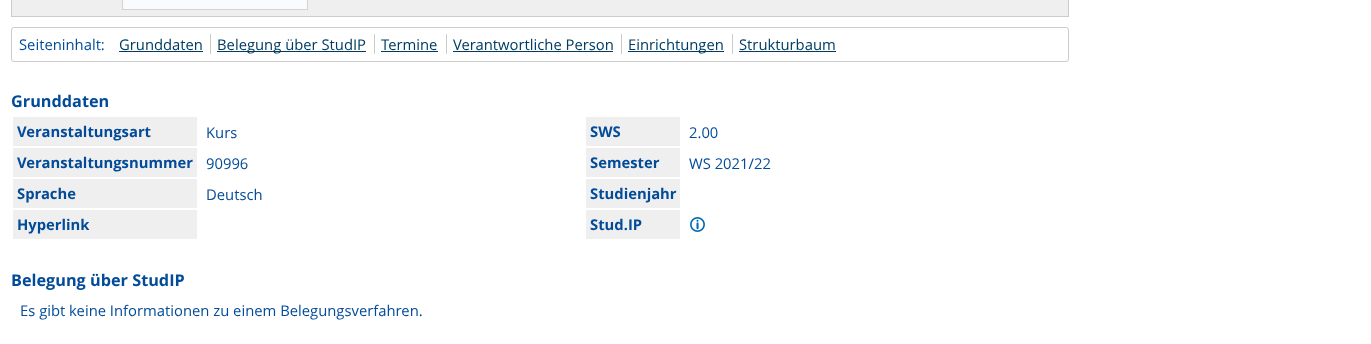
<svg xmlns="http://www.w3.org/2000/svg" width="1371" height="344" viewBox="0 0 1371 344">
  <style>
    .t1 { font: 14.8px Open Sans; fill: #024b99; }
    .t2 { font: 14.8px Open Sans; fill: #003c62; }
    .t3 { font: bold 16.25px Open Sans; fill: #024b99; }
    .t4 { font: bold 14.8px Open Sans; fill: #024b99; }
  </style>
  <rect width="100%" height="100%" fill="#fff"/>
  <rect x="11.5" y="-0.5" width="1057" height="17" fill="#efefef" stroke="#ccc"/>
  <rect x="122.5" y="-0.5" width="185" height="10" fill="#fafbfc" stroke="#d3d3d3"/>
  <rect x="11.5" y="27.5" width="1057" height="34" rx="2.5" fill="none" stroke="#ccc"/>
  <text x="19" y="50" class="t1">Seiteninhalt:</text>
  <text x="119" y="50" class="t2">Grunddaten</text>
  <rect x="119" y="51" width="84" height="1" fill="#003c62"/>
  <rect x="217" y="51" width="149" height="1" fill="#003c62"/>
  <text x="217" y="50" class="t2">Belegung über StudIP</text>
  <rect x="210" y="34" width="1" height="20" fill="#ccc"/>
  <text x="381" y="50" class="t2">Termine</text>
  <rect x="374" y="34" width="1" height="20" fill="#ccc"/>
  <rect x="381" y="51" width="57" height="1" fill="#003c62"/>
  <text x="453" y="50" class="t2">Verantwortliche Person</text>
  <rect x="446" y="34" width="1" height="20" fill="#ccc"/>
  <rect x="453" y="51" width="160" height="1" fill="#003c62"/>
  <rect x="628" y="51" width="96" height="1" fill="#003c62"/>
  <text x="628" y="50" class="t2">Einrichtungen</text>
  <rect x="621" y="34" width="1" height="20" fill="#ccc"/>
  <text x="739" y="50" class="t2">Strukturbaum</text>
  <rect x="732" y="34" width="1" height="20" fill="#ccc"/>
  <rect x="739" y="51" width="97" height="1" fill="#003c62"/>
  <text x="11" y="107" class="t3">Grunddaten</text>
  <rect x="13" y="117" width="184" height="29" fill="#efefef"/>
  <text x="17" y="137" class="t4">Veranstaltungsart</text>
  <text x="206" y="138" class="t1">Kurs</text>
  <rect x="586" y="117" width="94" height="29" fill="#efefef"/>
  <text x="590" y="137" class="t4">SWS</text>
  <text x="689" y="138" class="t1">2.00</text>
  <rect x="13" y="148" width="184" height="29" fill="#efefef"/>
  <text x="17" y="168" class="t4">Veranstaltungsnummer</text>
  <text x="206" y="169" class="t1">90996</text>
  <rect x="586" y="148" width="94" height="29" fill="#efefef"/>
  <text x="590" y="168" class="t4">Semester</text>
  <text x="689" y="169" class="t1">WS 2021/22</text>
  <rect x="13" y="179" width="184" height="29" fill="#efefef"/>
  <text x="17" y="199" class="t4">Sprache</text>
  <text x="206" y="200" class="t1">Deutsch</text>
  <rect x="586" y="179" width="94" height="29" fill="#efefef"/>
  <text x="590" y="199" class="t4">Studienjahr</text>
  <rect x="13" y="210" width="184" height="29" fill="#efefef"/>
  <text x="17" y="230" class="t4">Hyperlink</text>
  <rect x="586" y="210" width="94" height="29" fill="#efefef"/>
  <text x="590" y="230" class="t4">Stud.IP</text>
  <image x="690" y="217" width="15" height="15" href="images/1.png"/>
  <text x="11" y="286" class="t3">Belegung über StudIP</text>
  <text x="20" y="316" class="t1">Es gibt keine Informationen zu einem Belegungsverfahren.</text>
</svg>
